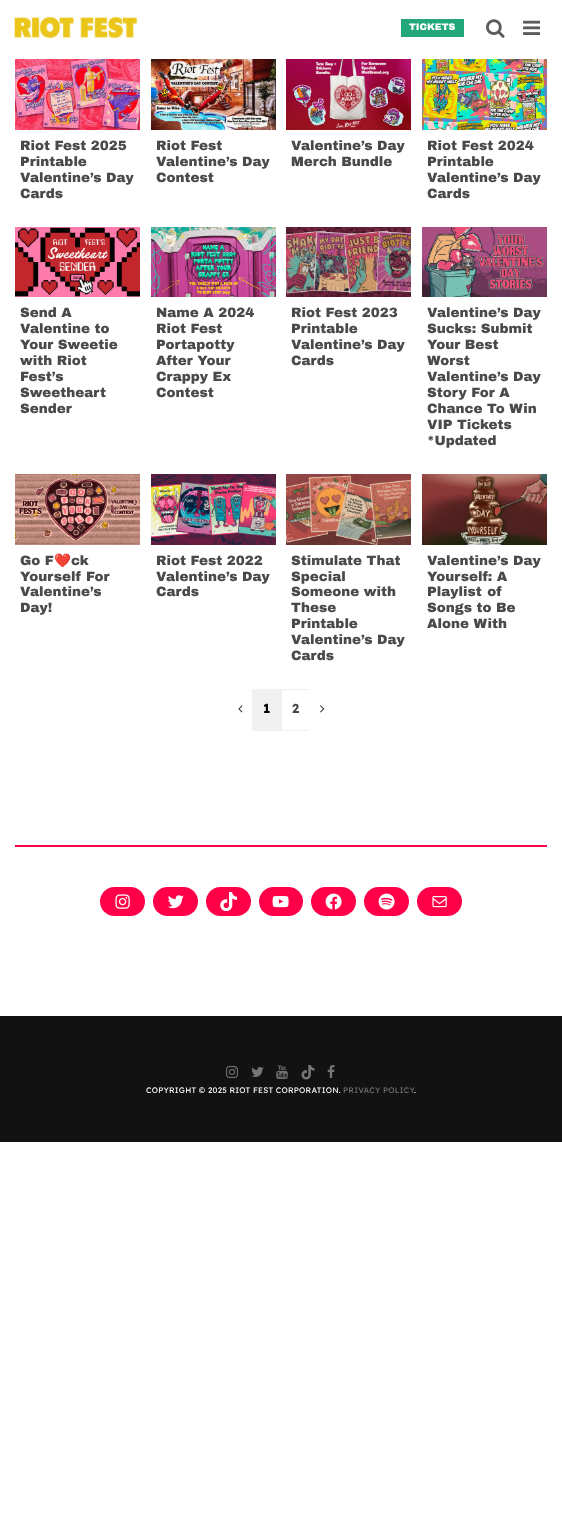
<svg xmlns="http://www.w3.org/2000/svg" width="562" height="1533" viewBox="0 0 562 1533">
  <style>
    .t1 { font: 900 9.5px Archivo Black; fill: #fff; }
    .t2 { font: 900 13.5px Archivo Black; fill: #4a4a4a; }
    .t3 { font: 13.5px Noto Color Emoji; fill: #4a4a4a; }
    .t4 { font: bold 13px Readex Pro; fill: #000; }
    .t5 { font: bold 13px Readex Pro; fill: #4a4a4a; }
    .t6 { font: 8px Readex Pro; letter-spacing: 0.25px; fill: #fff; }
    .t7 { font: 8px Readex Pro; letter-spacing: 0.25px; fill: #767676; }
  </style>
  <rect width="100%" height="100%" fill="#fff"/>
  <image x="14" y="16" width="124" height="23" href="images/1.png"/>
  <rect x="401" y="19" width="63" height="18" fill="#21a77a"/>
  <text x="409" y="30" class="t1">TICKETS</text>
  <image x="486" y="19" width="19" height="19" href="images/2.png"/>
  <image x="523" y="20" width="18" height="15" href="images/3.png"/>
  <image x="15" y="59" width="125" height="71" href="images/4.png"/>
  <text x="20" y="150" class="t2">Riot Fest 2025</text>
  <text x="20" y="166" class="t2">Printable</text>
  <text x="20" y="182" class="t2">Valentine’s Day</text>
  <text x="20" y="198" class="t2">Cards</text>
  <image x="151" y="59" width="125" height="71" href="images/5.png"/>
  <text x="156" y="150" class="t2">Riot Fest</text>
  <text x="156" y="166" class="t2">Valentine’s Day</text>
  <text x="156" y="182" class="t2">Contest</text>
  <image x="286" y="59" width="125" height="71" href="images/6.png"/>
  <text x="291" y="150" class="t2">Valentine’s Day</text>
  <text x="291" y="166" class="t2">Merch Bundle</text>
  <image x="422" y="59" width="125" height="71" href="images/7.png"/>
  <text x="427" y="150" class="t2">Riot Fest 2024</text>
  <text x="427" y="166" class="t2">Printable</text>
  <text x="427" y="182" class="t2">Valentine’s Day</text>
  <text x="427" y="198" class="t2">Cards</text>
  <image x="15" y="227" width="125" height="70" href="images/8.png"/>
  <text x="20" y="317" class="t2">Send A</text>
  <text x="20" y="333" class="t2">Valentine to</text>
  <text x="20" y="349" class="t2">Your Sweetie</text>
  <text x="20" y="365" class="t2">with Riot</text>
  <text x="20" y="381" class="t2">Fest’s</text>
  <text x="20" y="397" class="t2">Sweetheart</text>
  <text x="20" y="413" class="t2">Sender</text>
  <image x="151" y="227" width="125" height="70" href="images/9.png"/>
  <text x="156" y="317" class="t2">Name A 2024</text>
  <text x="156" y="333" class="t2">Riot Fest</text>
  <text x="156" y="349" class="t2">Portapotty</text>
  <text x="156" y="365" class="t2">After Your</text>
  <text x="156" y="381" class="t2">Crappy Ex</text>
  <text x="156" y="397" class="t2">Contest</text>
  <image x="286" y="227" width="125" height="70" href="images/10.png"/>
  <text x="291" y="317" class="t2">Riot Fest 2023</text>
  <text x="291" y="333" class="t2">Printable</text>
  <text x="291" y="349" class="t2">Valentine’s Day</text>
  <text x="291" y="365" class="t2">Cards</text>
  <image x="422" y="227" width="125" height="70" href="images/11.png"/>
  <text x="427" y="317" class="t2">Valentine’s Day</text>
  <text x="427" y="333" class="t2">Sucks: Submit</text>
  <text x="427" y="349" class="t2">Your Best</text>
  <text x="427" y="365" class="t2">Worst</text>
  <text x="427" y="381" class="t2">Valentine’s Day</text>
  <text x="427" y="397" class="t2">Story For A</text>
  <text x="427" y="413" class="t2">Chance To Win</text>
  <text x="427" y="429" class="t2">VIP Tickets</text>
  <text x="427" y="445" class="t2">*Updated</text>
  <image x="15" y="474" width="125" height="71" href="images/12.png"/>
  <text x="20" y="565" class="t2">Go F</text>
  <text x="54" y="565" class="t3">❤️</text>
  <text x="71" y="565" class="t2">ck</text>
  <text x="20" y="581" class="t2">Yourself For</text>
  <text x="20" y="596" class="t2">Valentine’s</text>
  <text x="20" y="612" class="t2">Day!</text>
  <image x="151" y="474" width="125" height="71" href="images/13.png"/>
  <text x="156" y="565" class="t2">Riot Fest 2022</text>
  <text x="156" y="581" class="t2">Valentine’s Day</text>
  <text x="156" y="596" class="t2">Cards</text>
  <image x="286" y="474" width="125" height="71" href="images/14.png"/>
  <text x="291" y="565" class="t2">Stimulate That</text>
  <text x="291" y="581" class="t2">Special</text>
  <text x="291" y="596" class="t2">Someone with</text>
  <text x="291" y="612" class="t2">These</text>
  <text x="291" y="628" class="t2">Printable</text>
  <text x="291" y="644" class="t2">Valentine’s Day</text>
  <text x="291" y="660" class="t2">Cards</text>
  <image x="422" y="474" width="125" height="71" href="images/15.png"/>
  <text x="427" y="565" class="t2">Valentine’s Day</text>
  <text x="427" y="581" class="t2">Yourself: A</text>
  <text x="427" y="596" word-spacing="1" class="t2">Playlist of</text>
  <text x="427" y="612" class="t2">Songs to Be</text>
  <text x="427" y="628" class="t2">Alone With</text>
  <image x="238" y="705" width="5" height="8" href="images/16.png"/>
  <rect x="252" y="689" width="29" height="42" fill="#f1f1f1"/>
  <text x="263" y="713" class="t4">1</text>
  <rect x="281.5" y="689.5" width="28" height="41" fill="none" stroke="#f1f1f1"/>
  <text x="292" y="713" class="t5">2</text>
  <rect x="309" y="689" width="1" height="42" fill="#fff"/>
  <image x="320" y="705" width="5" height="8" href="images/17.png"/>
  <rect x="15" y="845" width="532" height="2" fill="#ff0048"/>
  <rect x="100" y="887" width="45" height="29" rx="14.5" fill="#ff0048"/>
  <image x="115" y="894" width="15" height="15" href="images/18.png"/>
  <rect x="153" y="887" width="45" height="29" rx="14.5" fill="#ff0048"/>
  <image x="168" y="895" width="16" height="14" href="images/19.png"/>
  <rect x="206" y="887" width="45" height="29" rx="14.5" fill="#ff0048"/>
  <image x="220" y="892" width="17" height="19" href="images/20.png"/>
  <rect x="259" y="887" width="44" height="29" rx="14.5" fill="#ff0048"/>
  <image x="272" y="896" width="17" height="12" href="images/21.png"/>
  <rect x="311" y="887" width="45" height="29" rx="14.5" fill="#ff0048"/>
  <image x="325" y="893" width="17" height="17" href="images/22.png"/>
  <rect x="364" y="887" width="45" height="29" rx="14.5" fill="#ff0048"/>
  <image x="378" y="893" width="17" height="17" href="images/23.png"/>
  <rect x="417" y="887" width="45" height="29" rx="14.5" fill="#ff0048"/>
  <image x="432" y="896" width="15" height="12" href="images/24.png"/>
  <rect x="0" y="1016" width="562" height="126" fill="#121212"/>
  <image x="226" y="1066" width="12" height="12" href="images/25.png"/>
  <image x="251" y="1067" width="13" height="10" href="images/26.png"/>
  <image x="276" y="1065" width="12" height="14" href="images/27.png"/>
  <image x="301" y="1065" width="14" height="15" href="images/28.png"/>
  <image x="327" y="1065" width="8" height="13" href="images/29.png"/>
  <text x="146" y="1093" class="t6">COPYRIGHT © 2025 RIOT FEST CORPORATION.</text>
  <text x="343" y="1093" class="t7">PRIVACY POLICY</text>
  <text x="414" y="1093" class="t6">.</text>
</svg>
